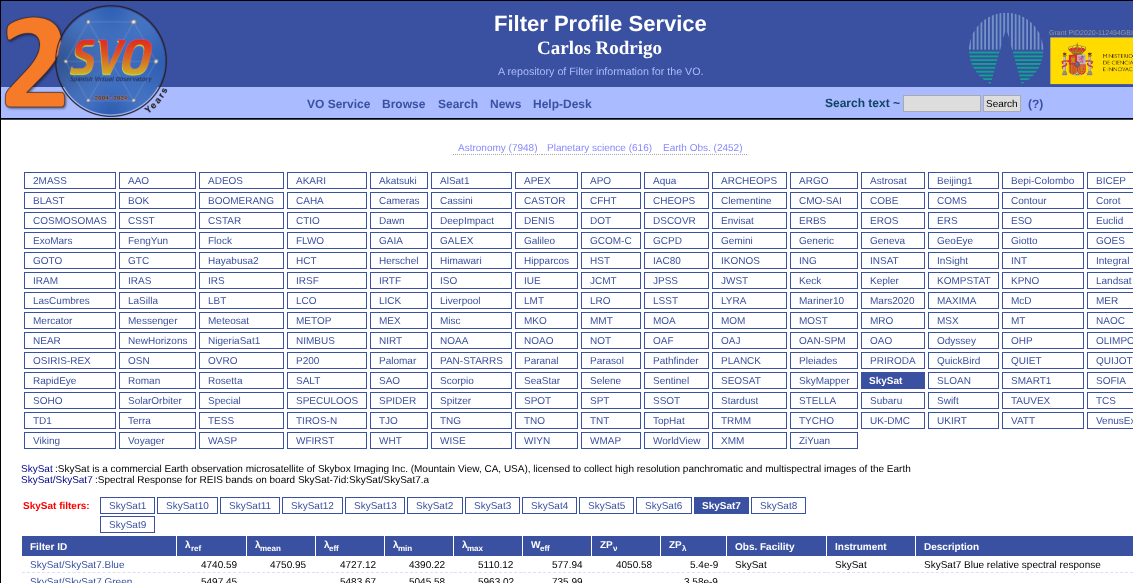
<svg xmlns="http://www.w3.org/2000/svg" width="1133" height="583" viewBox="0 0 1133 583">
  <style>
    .t1 { font: bold 22px Liberation Sans; fill: #fff; }
    .t2 { font: bold 19px Liberation Serif; fill: #fff; }
    .t3 { font: 10.7px Liberation Sans; fill: #abf; }
    .t4 { font: 7px Liberation Sans; fill: #999; }
    .t5 { font: bold 12px Liberation Sans; fill: #3a50a0; }
    .t6 { font: bold 12px Liberation Sans; fill: #146; }
    .t7 { font: 10px Liberation Sans; fill: #000; }
    .t8 { font: 10px Liberation Sans; fill: #88f; }
    .t9 { font: 10px Liberation Sans; fill: #3a50a0; }
    .t10 { font: bold 10px Liberation Sans; fill: #fff; }
    .t11 { font: 10px Liberation Sans; fill: #008; }
    .t12 { font: bold 10px Liberation Sans; fill: #f00; }
    .t13 { font: bold 8px Liberation Sans; fill: #fff; }
  </style>
  <rect width="100%" height="100%" fill="#000"/>
  <image x="1" y="1" width="1132" height="120" href="images/1.png"/>
  <image x="4" y="4" width="164" height="114" href="images/2.png"/>
  <text x="494" y="31" class="t1">Filter Profile Service</text>
  <text x="537" y="54" class="t2">Carlos Rodrigo</text>
  <text x="498" y="75" class="t3">A repository of Filter information for the VO.</text>
  <image x="969" y="12" width="80" height="72" href="images/3.png"/>
  <text x="1049" y="35" class="t4">Grant PID2020-112494GBI</text>
  <image x="1050" y="37" width="83" height="48" href="images/4.png"/>
  <text x="307" y="108" class="t5">VO Service</text>
  <text x="382" y="108" class="t5">Browse</text>
  <text x="438" y="108" class="t5">Search</text>
  <text x="490" y="108" class="t5">News</text>
  <text x="533" y="108" class="t5">Help-Desk</text>
  <text x="825" y="107" class="t6">Search text ~</text>
  <rect x="903.5" y="95.5" width="77" height="16" fill="#ddd" stroke="#aaa"/>
  <rect x="983.5" y="95.5" width="37" height="16" fill="#ddd" stroke="#aaa"/>
  <text x="986" y="107" class="t7">Search</text>
  <text x="1028" y="108" class="t5">(?)</text>
  <rect x="1" y="121" width="1132" height="462" fill="#fff"/>
  <path d="M453 154.5H542" fill="none" stroke="#aaa" stroke-dasharray="1 1"/>
  <text x="458" y="151" class="t8">Astronomy (7948)</text>
  <path d="M542 154.5H658" fill="none" stroke="#aaa" stroke-dasharray="1 1"/>
  <text x="547" y="151" class="t8">Planetary science (616)</text>
  <path d="M658 154.5H747" fill="none" stroke="#aaa" stroke-dasharray="1 1"/>
  <text x="663" y="151" class="t8">Earth Obs. (2452)</text>
  <rect x="24.5" y="172.5" width="91" height="16" fill="none" stroke="#3a50a0"/>
  <text x="33" y="184" class="t9">2MASS</text>
  <rect x="119.5" y="172.5" width="76" height="16" fill="none" stroke="#3a50a0"/>
  <text x="128" y="184" class="t9">AAO</text>
  <rect x="199.5" y="172.5" width="84" height="16" fill="none" stroke="#3a50a0"/>
  <text x="208" y="184" class="t9">ADEOS</text>
  <rect x="287.5" y="172.5" width="79" height="16" fill="none" stroke="#3a50a0"/>
  <text x="296" y="184" class="t9">AKARI</text>
  <rect x="370.5" y="172.5" width="57" height="16" fill="none" stroke="#3a50a0"/>
  <text x="379" y="184" class="t9">Akatsuki</text>
  <rect x="431.5" y="172.5" width="80" height="16" fill="none" stroke="#3a50a0"/>
  <text x="440" y="184" class="t9">AlSat1</text>
  <rect x="515.5" y="172.5" width="62" height="16" fill="none" stroke="#3a50a0"/>
  <text x="524" y="184" class="t9">APEX</text>
  <rect x="581.5" y="172.5" width="59" height="16" fill="none" stroke="#3a50a0"/>
  <text x="590" y="184" class="t9">APO</text>
  <rect x="644.5" y="172.5" width="64" height="16" fill="none" stroke="#3a50a0"/>
  <text x="653" y="184" class="t9">Aqua</text>
  <rect x="712.5" y="172.5" width="74" height="16" fill="none" stroke="#3a50a0"/>
  <text x="721" y="184" class="t9">ARCHEOPS</text>
  <rect x="790.5" y="172.5" width="67" height="16" fill="none" stroke="#3a50a0"/>
  <text x="799" y="184" class="t9">ARGO</text>
  <rect x="861.5" y="172.5" width="63" height="16" fill="none" stroke="#3a50a0"/>
  <text x="870" y="184" class="t9">Astrosat</text>
  <rect x="928.5" y="172.5" width="70" height="16" fill="none" stroke="#3a50a0"/>
  <text x="937" y="184" class="t9">Beijing1</text>
  <rect x="1002.5" y="172.5" width="81" height="16" fill="none" stroke="#3a50a0"/>
  <text x="1011" y="184" class="t9">Bepi-Colombo</text>
  <rect x="1087.5" y="172.5" width="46" height="16" fill="none" stroke="#3a50a0"/>
  <text x="1096" y="184" class="t9">BICEP</text>
  <rect x="24.5" y="192.5" width="91" height="16" fill="none" stroke="#3a50a0"/>
  <text x="33" y="204" class="t9">BLAST</text>
  <rect x="119.5" y="192.5" width="76" height="16" fill="none" stroke="#3a50a0"/>
  <text x="128" y="204" class="t9">BOK</text>
  <rect x="199.5" y="192.5" width="84" height="16" fill="none" stroke="#3a50a0"/>
  <text x="208" y="204" class="t9">BOOMERANG</text>
  <rect x="287.5" y="192.5" width="79" height="16" fill="none" stroke="#3a50a0"/>
  <text x="296" y="204" class="t9">CAHA</text>
  <rect x="370.5" y="192.5" width="57" height="16" fill="none" stroke="#3a50a0"/>
  <text x="379" y="204" class="t9">Cameras</text>
  <rect x="431.5" y="192.5" width="80" height="16" fill="none" stroke="#3a50a0"/>
  <text x="440" y="204" class="t9">Cassini</text>
  <rect x="515.5" y="192.5" width="62" height="16" fill="none" stroke="#3a50a0"/>
  <text x="524" y="204" class="t9">CASTOR</text>
  <rect x="581.5" y="192.5" width="59" height="16" fill="none" stroke="#3a50a0"/>
  <text x="590" y="204" class="t9">CFHT</text>
  <rect x="644.5" y="192.5" width="64" height="16" fill="none" stroke="#3a50a0"/>
  <text x="653" y="204" class="t9">CHEOPS</text>
  <rect x="712.5" y="192.5" width="74" height="16" fill="none" stroke="#3a50a0"/>
  <text x="721" y="204" class="t9">Clementine</text>
  <rect x="790.5" y="192.5" width="67" height="16" fill="none" stroke="#3a50a0"/>
  <text x="799" y="204" class="t9">CMO-SAI</text>
  <rect x="861.5" y="192.5" width="63" height="16" fill="none" stroke="#3a50a0"/>
  <text x="870" y="204" class="t9">COBE</text>
  <rect x="928.5" y="192.5" width="70" height="16" fill="none" stroke="#3a50a0"/>
  <text x="937" y="204" class="t9">COMS</text>
  <rect x="1002.5" y="192.5" width="81" height="16" fill="none" stroke="#3a50a0"/>
  <text x="1011" y="204" class="t9">Contour</text>
  <rect x="1087.5" y="192.5" width="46" height="16" fill="none" stroke="#3a50a0"/>
  <text x="1096" y="204" class="t9">Corot</text>
  <rect x="24.5" y="212.5" width="91" height="16" fill="none" stroke="#3a50a0"/>
  <text x="33" y="224" class="t9">COSMOSOMAS</text>
  <rect x="119.5" y="212.5" width="76" height="16" fill="none" stroke="#3a50a0"/>
  <text x="128" y="224" class="t9">CSST</text>
  <rect x="199.5" y="212.5" width="84" height="16" fill="none" stroke="#3a50a0"/>
  <text x="208" y="224" class="t9">CSTAR</text>
  <rect x="287.5" y="212.5" width="79" height="16" fill="none" stroke="#3a50a0"/>
  <text x="296" y="224" class="t9">CTIO</text>
  <rect x="370.5" y="212.5" width="57" height="16" fill="none" stroke="#3a50a0"/>
  <text x="379" y="224" class="t9">Dawn</text>
  <rect x="431.5" y="212.5" width="80" height="16" fill="none" stroke="#3a50a0"/>
  <text x="440" y="224" class="t9">DeepImpact</text>
  <rect x="515.5" y="212.5" width="62" height="16" fill="none" stroke="#3a50a0"/>
  <text x="524" y="224" class="t9">DENIS</text>
  <rect x="581.5" y="212.5" width="59" height="16" fill="none" stroke="#3a50a0"/>
  <text x="590" y="224" class="t9">DOT</text>
  <rect x="644.5" y="212.5" width="64" height="16" fill="none" stroke="#3a50a0"/>
  <text x="653" y="224" class="t9">DSCOVR</text>
  <rect x="712.5" y="212.5" width="74" height="16" fill="none" stroke="#3a50a0"/>
  <text x="721" y="224" class="t9">Envisat</text>
  <rect x="790.5" y="212.5" width="67" height="16" fill="none" stroke="#3a50a0"/>
  <text x="799" y="224" class="t9">ERBS</text>
  <rect x="861.5" y="212.5" width="63" height="16" fill="none" stroke="#3a50a0"/>
  <text x="870" y="224" class="t9">EROS</text>
  <rect x="928.5" y="212.5" width="70" height="16" fill="none" stroke="#3a50a0"/>
  <text x="937" y="224" class="t9">ERS</text>
  <rect x="1002.5" y="212.5" width="81" height="16" fill="none" stroke="#3a50a0"/>
  <text x="1011" y="224" class="t9">ESO</text>
  <rect x="1087.5" y="212.5" width="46" height="16" fill="none" stroke="#3a50a0"/>
  <text x="1096" y="224" class="t9">Euclid</text>
  <rect x="24.5" y="232.5" width="91" height="16" fill="none" stroke="#3a50a0"/>
  <text x="33" y="244" class="t9">ExoMars</text>
  <rect x="119.5" y="232.5" width="76" height="16" fill="none" stroke="#3a50a0"/>
  <text x="128" y="244" class="t9">FengYun</text>
  <rect x="199.5" y="232.5" width="84" height="16" fill="none" stroke="#3a50a0"/>
  <text x="208" y="244" class="t9">Flock</text>
  <rect x="287.5" y="232.5" width="79" height="16" fill="none" stroke="#3a50a0"/>
  <text x="296" y="244" class="t9">FLWO</text>
  <rect x="370.5" y="232.5" width="57" height="16" fill="none" stroke="#3a50a0"/>
  <text x="379" y="244" class="t9">GAIA</text>
  <rect x="431.5" y="232.5" width="80" height="16" fill="none" stroke="#3a50a0"/>
  <text x="440" y="244" class="t9">GALEX</text>
  <rect x="515.5" y="232.5" width="62" height="16" fill="none" stroke="#3a50a0"/>
  <text x="524" y="244" class="t9">Galileo</text>
  <rect x="581.5" y="232.5" width="59" height="16" fill="none" stroke="#3a50a0"/>
  <text x="590" y="244" class="t9">GCOM-C</text>
  <rect x="644.5" y="232.5" width="64" height="16" fill="none" stroke="#3a50a0"/>
  <text x="653" y="244" class="t9">GCPD</text>
  <rect x="712.5" y="232.5" width="74" height="16" fill="none" stroke="#3a50a0"/>
  <text x="721" y="244" class="t9">Gemini</text>
  <rect x="790.5" y="232.5" width="67" height="16" fill="none" stroke="#3a50a0"/>
  <text x="799" y="244" class="t9">Generic</text>
  <rect x="861.5" y="232.5" width="63" height="16" fill="none" stroke="#3a50a0"/>
  <text x="870" y="244" class="t9">Geneva</text>
  <rect x="928.5" y="232.5" width="70" height="16" fill="none" stroke="#3a50a0"/>
  <text x="937" y="244" class="t9">GeoEye</text>
  <rect x="1002.5" y="232.5" width="81" height="16" fill="none" stroke="#3a50a0"/>
  <text x="1011" y="244" class="t9">Giotto</text>
  <rect x="1087.5" y="232.5" width="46" height="16" fill="none" stroke="#3a50a0"/>
  <text x="1096" y="244" class="t9">GOES</text>
  <rect x="24.5" y="252.5" width="91" height="16" fill="none" stroke="#3a50a0"/>
  <text x="33" y="264" class="t9">GOTO</text>
  <rect x="119.5" y="252.5" width="76" height="16" fill="none" stroke="#3a50a0"/>
  <text x="128" y="264" class="t9">GTC</text>
  <rect x="199.5" y="252.5" width="84" height="16" fill="none" stroke="#3a50a0"/>
  <text x="208" y="264" class="t9">Hayabusa2</text>
  <rect x="287.5" y="252.5" width="79" height="16" fill="none" stroke="#3a50a0"/>
  <text x="296" y="264" class="t9">HCT</text>
  <rect x="370.5" y="252.5" width="57" height="16" fill="none" stroke="#3a50a0"/>
  <text x="379" y="264" class="t9">Herschel</text>
  <rect x="431.5" y="252.5" width="80" height="16" fill="none" stroke="#3a50a0"/>
  <text x="440" y="264" class="t9">Himawari</text>
  <rect x="515.5" y="252.5" width="62" height="16" fill="none" stroke="#3a50a0"/>
  <text x="524" y="264" class="t9">Hipparcos</text>
  <rect x="581.5" y="252.5" width="59" height="16" fill="none" stroke="#3a50a0"/>
  <text x="590" y="264" class="t9">HST</text>
  <rect x="644.5" y="252.5" width="64" height="16" fill="none" stroke="#3a50a0"/>
  <text x="653" y="264" class="t9">IAC80</text>
  <rect x="712.5" y="252.5" width="74" height="16" fill="none" stroke="#3a50a0"/>
  <text x="721" y="264" class="t9">IKONOS</text>
  <rect x="790.5" y="252.5" width="67" height="16" fill="none" stroke="#3a50a0"/>
  <text x="799" y="264" class="t9">ING</text>
  <rect x="861.5" y="252.5" width="63" height="16" fill="none" stroke="#3a50a0"/>
  <text x="870" y="264" class="t9">INSAT</text>
  <rect x="928.5" y="252.5" width="70" height="16" fill="none" stroke="#3a50a0"/>
  <text x="937" y="264" class="t9">InSight</text>
  <rect x="1002.5" y="252.5" width="81" height="16" fill="none" stroke="#3a50a0"/>
  <text x="1011" y="264" class="t9">INT</text>
  <rect x="1087.5" y="252.5" width="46" height="16" fill="none" stroke="#3a50a0"/>
  <text x="1096" y="264" class="t9">Integral</text>
  <rect x="24.5" y="272.5" width="91" height="16" fill="none" stroke="#3a50a0"/>
  <text x="33" y="284" class="t9">IRAM</text>
  <rect x="119.5" y="272.5" width="76" height="16" fill="none" stroke="#3a50a0"/>
  <text x="128" y="284" class="t9">IRAS</text>
  <rect x="199.5" y="272.5" width="84" height="16" fill="none" stroke="#3a50a0"/>
  <text x="208" y="284" class="t9">IRS</text>
  <rect x="287.5" y="272.5" width="79" height="16" fill="none" stroke="#3a50a0"/>
  <text x="296" y="284" class="t9">IRSF</text>
  <rect x="370.5" y="272.5" width="57" height="16" fill="none" stroke="#3a50a0"/>
  <text x="379" y="284" class="t9">IRTF</text>
  <rect x="431.5" y="272.5" width="80" height="16" fill="none" stroke="#3a50a0"/>
  <text x="440" y="284" class="t9">ISO</text>
  <rect x="515.5" y="272.5" width="62" height="16" fill="none" stroke="#3a50a0"/>
  <text x="524" y="284" class="t9">IUE</text>
  <rect x="581.5" y="272.5" width="59" height="16" fill="none" stroke="#3a50a0"/>
  <text x="590" y="284" class="t9">JCMT</text>
  <rect x="644.5" y="272.5" width="64" height="16" fill="none" stroke="#3a50a0"/>
  <text x="653" y="284" class="t9">JPSS</text>
  <rect x="712.5" y="272.5" width="74" height="16" fill="none" stroke="#3a50a0"/>
  <text x="721" y="284" class="t9">JWST</text>
  <rect x="790.5" y="272.5" width="67" height="16" fill="none" stroke="#3a50a0"/>
  <text x="799" y="284" class="t9">Keck</text>
  <rect x="861.5" y="272.5" width="63" height="16" fill="none" stroke="#3a50a0"/>
  <text x="870" y="284" class="t9">Kepler</text>
  <rect x="928.5" y="272.5" width="70" height="16" fill="none" stroke="#3a50a0"/>
  <text x="937" y="284" class="t9">KOMPSTAT</text>
  <rect x="1002.5" y="272.5" width="81" height="16" fill="none" stroke="#3a50a0"/>
  <text x="1011" y="284" class="t9">KPNO</text>
  <rect x="1087.5" y="272.5" width="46" height="16" fill="none" stroke="#3a50a0"/>
  <text x="1096" y="284" class="t9">Landsat</text>
  <rect x="24.5" y="292.5" width="91" height="16" fill="none" stroke="#3a50a0"/>
  <text x="33" y="304" class="t9">LasCumbres</text>
  <rect x="119.5" y="292.5" width="76" height="16" fill="none" stroke="#3a50a0"/>
  <text x="128" y="304" class="t9">LaSilla</text>
  <rect x="199.5" y="292.5" width="84" height="16" fill="none" stroke="#3a50a0"/>
  <text x="208" y="304" class="t9">LBT</text>
  <rect x="287.5" y="292.5" width="79" height="16" fill="none" stroke="#3a50a0"/>
  <text x="296" y="304" class="t9">LCO</text>
  <rect x="370.5" y="292.5" width="57" height="16" fill="none" stroke="#3a50a0"/>
  <text x="379" y="304" class="t9">LICK</text>
  <rect x="431.5" y="292.5" width="80" height="16" fill="none" stroke="#3a50a0"/>
  <text x="440" y="304" class="t9">Liverpool</text>
  <rect x="515.5" y="292.5" width="62" height="16" fill="none" stroke="#3a50a0"/>
  <text x="524" y="304" class="t9">LMT</text>
  <rect x="581.5" y="292.5" width="59" height="16" fill="none" stroke="#3a50a0"/>
  <text x="590" y="304" class="t9">LRO</text>
  <rect x="644.5" y="292.5" width="64" height="16" fill="none" stroke="#3a50a0"/>
  <text x="653" y="304" class="t9">LSST</text>
  <rect x="712.5" y="292.5" width="74" height="16" fill="none" stroke="#3a50a0"/>
  <text x="721" y="304" class="t9">LYRA</text>
  <rect x="790.5" y="292.5" width="67" height="16" fill="none" stroke="#3a50a0"/>
  <text x="799" y="304" class="t9">Mariner10</text>
  <rect x="861.5" y="292.5" width="63" height="16" fill="none" stroke="#3a50a0"/>
  <text x="870" y="304" class="t9">Mars2020</text>
  <rect x="928.5" y="292.5" width="70" height="16" fill="none" stroke="#3a50a0"/>
  <text x="937" y="304" class="t9">MAXIMA</text>
  <rect x="1002.5" y="292.5" width="81" height="16" fill="none" stroke="#3a50a0"/>
  <text x="1011" y="304" class="t9">McD</text>
  <rect x="1087.5" y="292.5" width="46" height="16" fill="none" stroke="#3a50a0"/>
  <text x="1096" y="304" class="t9">MER</text>
  <rect x="24.5" y="312.5" width="91" height="16" fill="none" stroke="#3a50a0"/>
  <text x="33" y="324" class="t9">Mercator</text>
  <rect x="119.5" y="312.5" width="76" height="16" fill="none" stroke="#3a50a0"/>
  <text x="128" y="324" class="t9">Messenger</text>
  <rect x="199.5" y="312.5" width="84" height="16" fill="none" stroke="#3a50a0"/>
  <text x="208" y="324" class="t9">Meteosat</text>
  <rect x="287.5" y="312.5" width="79" height="16" fill="none" stroke="#3a50a0"/>
  <text x="296" y="324" class="t9">METOP</text>
  <rect x="370.5" y="312.5" width="57" height="16" fill="none" stroke="#3a50a0"/>
  <text x="379" y="324" class="t9">MEX</text>
  <rect x="431.5" y="312.5" width="80" height="16" fill="none" stroke="#3a50a0"/>
  <text x="440" y="324" class="t9">Misc</text>
  <rect x="515.5" y="312.5" width="62" height="16" fill="none" stroke="#3a50a0"/>
  <text x="524" y="324" class="t9">MKO</text>
  <rect x="581.5" y="312.5" width="59" height="16" fill="none" stroke="#3a50a0"/>
  <text x="590" y="324" class="t9">MMT</text>
  <rect x="644.5" y="312.5" width="64" height="16" fill="none" stroke="#3a50a0"/>
  <text x="653" y="324" class="t9">MOA</text>
  <rect x="712.5" y="312.5" width="74" height="16" fill="none" stroke="#3a50a0"/>
  <text x="721" y="324" class="t9">MOM</text>
  <rect x="790.5" y="312.5" width="67" height="16" fill="none" stroke="#3a50a0"/>
  <text x="799" y="324" class="t9">MOST</text>
  <rect x="861.5" y="312.5" width="63" height="16" fill="none" stroke="#3a50a0"/>
  <text x="870" y="324" class="t9">MRO</text>
  <rect x="928.5" y="312.5" width="70" height="16" fill="none" stroke="#3a50a0"/>
  <text x="937" y="324" class="t9">MSX</text>
  <rect x="1002.5" y="312.5" width="81" height="16" fill="none" stroke="#3a50a0"/>
  <text x="1011" y="324" class="t9">MT</text>
  <rect x="1087.5" y="312.5" width="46" height="16" fill="none" stroke="#3a50a0"/>
  <text x="1096" y="324" class="t9">NAOC</text>
  <rect x="24.5" y="332.5" width="91" height="16" fill="none" stroke="#3a50a0"/>
  <text x="33" y="344" class="t9">NEAR</text>
  <rect x="119.5" y="332.5" width="76" height="16" fill="none" stroke="#3a50a0"/>
  <text x="128" y="344" class="t9">NewHorizons</text>
  <rect x="199.5" y="332.5" width="84" height="16" fill="none" stroke="#3a50a0"/>
  <text x="208" y="344" class="t9">NigeriaSat1</text>
  <rect x="287.5" y="332.5" width="79" height="16" fill="none" stroke="#3a50a0"/>
  <text x="296" y="344" class="t9">NIMBUS</text>
  <rect x="370.5" y="332.5" width="57" height="16" fill="none" stroke="#3a50a0"/>
  <text x="379" y="344" class="t9">NIRT</text>
  <rect x="431.5" y="332.5" width="80" height="16" fill="none" stroke="#3a50a0"/>
  <text x="440" y="344" class="t9">NOAA</text>
  <rect x="515.5" y="332.5" width="62" height="16" fill="none" stroke="#3a50a0"/>
  <text x="524" y="344" class="t9">NOAO</text>
  <rect x="581.5" y="332.5" width="59" height="16" fill="none" stroke="#3a50a0"/>
  <text x="590" y="344" class="t9">NOT</text>
  <rect x="644.5" y="332.5" width="64" height="16" fill="none" stroke="#3a50a0"/>
  <text x="653" y="344" class="t9">OAF</text>
  <rect x="712.5" y="332.5" width="74" height="16" fill="none" stroke="#3a50a0"/>
  <text x="721" y="344" class="t9">OAJ</text>
  <rect x="790.5" y="332.5" width="67" height="16" fill="none" stroke="#3a50a0"/>
  <text x="799" y="344" class="t9">OAN-SPM</text>
  <rect x="861.5" y="332.5" width="63" height="16" fill="none" stroke="#3a50a0"/>
  <text x="870" y="344" class="t9">OAO</text>
  <rect x="928.5" y="332.5" width="70" height="16" fill="none" stroke="#3a50a0"/>
  <text x="937" y="344" class="t9">Odyssey</text>
  <rect x="1002.5" y="332.5" width="81" height="16" fill="none" stroke="#3a50a0"/>
  <text x="1011" y="344" class="t9">OHP</text>
  <rect x="1087.5" y="332.5" width="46" height="16" fill="none" stroke="#3a50a0"/>
  <text x="1096" y="344" class="t9">OLIMPO</text>
  <rect x="24.5" y="352.5" width="91" height="16" fill="none" stroke="#3a50a0"/>
  <text x="33" y="364" class="t9">OSIRIS-REX</text>
  <rect x="119.5" y="352.5" width="76" height="16" fill="none" stroke="#3a50a0"/>
  <text x="128" y="364" class="t9">OSN</text>
  <rect x="199.5" y="352.5" width="84" height="16" fill="none" stroke="#3a50a0"/>
  <text x="208" y="364" class="t9">OVRO</text>
  <rect x="287.5" y="352.5" width="79" height="16" fill="none" stroke="#3a50a0"/>
  <text x="296" y="364" class="t9">P200</text>
  <rect x="370.5" y="352.5" width="57" height="16" fill="none" stroke="#3a50a0"/>
  <text x="379" y="364" class="t9">Palomar</text>
  <rect x="431.5" y="352.5" width="80" height="16" fill="none" stroke="#3a50a0"/>
  <text x="440" y="364" class="t9">PAN-STARRS</text>
  <rect x="515.5" y="352.5" width="62" height="16" fill="none" stroke="#3a50a0"/>
  <text x="524" y="364" class="t9">Paranal</text>
  <rect x="581.5" y="352.5" width="59" height="16" fill="none" stroke="#3a50a0"/>
  <text x="590" y="364" class="t9">Parasol</text>
  <rect x="644.5" y="352.5" width="64" height="16" fill="none" stroke="#3a50a0"/>
  <text x="653" y="364" class="t9">Pathfinder</text>
  <rect x="712.5" y="352.5" width="74" height="16" fill="none" stroke="#3a50a0"/>
  <text x="721" y="364" class="t9">PLANCK</text>
  <rect x="790.5" y="352.5" width="67" height="16" fill="none" stroke="#3a50a0"/>
  <text x="799" y="364" class="t9">Pleiades</text>
  <rect x="861.5" y="352.5" width="63" height="16" fill="none" stroke="#3a50a0"/>
  <text x="870" y="364" class="t9">PRIRODA</text>
  <rect x="928.5" y="352.5" width="70" height="16" fill="none" stroke="#3a50a0"/>
  <text x="937" y="364" class="t9">QuickBird</text>
  <rect x="1002.5" y="352.5" width="81" height="16" fill="none" stroke="#3a50a0"/>
  <text x="1011" y="364" class="t9">QUIET</text>
  <rect x="1087.5" y="352.5" width="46" height="16" fill="none" stroke="#3a50a0"/>
  <text x="1096" y="364" class="t9">QUIJOT</text>
  <rect x="24.5" y="372.5" width="91" height="16" fill="none" stroke="#3a50a0"/>
  <text x="33" y="384" class="t9">RapidEye</text>
  <rect x="119.5" y="372.5" width="76" height="16" fill="none" stroke="#3a50a0"/>
  <text x="128" y="384" class="t9">Roman</text>
  <rect x="199.5" y="372.5" width="84" height="16" fill="none" stroke="#3a50a0"/>
  <text x="208" y="384" class="t9">Rosetta</text>
  <rect x="287.5" y="372.5" width="79" height="16" fill="none" stroke="#3a50a0"/>
  <text x="296" y="384" class="t9">SALT</text>
  <rect x="370.5" y="372.5" width="57" height="16" fill="none" stroke="#3a50a0"/>
  <text x="379" y="384" class="t9">SAO</text>
  <rect x="431.5" y="372.5" width="80" height="16" fill="none" stroke="#3a50a0"/>
  <text x="440" y="384" class="t9">Scorpio</text>
  <rect x="515.5" y="372.5" width="62" height="16" fill="none" stroke="#3a50a0"/>
  <text x="524" y="384" class="t9">SeaStar</text>
  <rect x="581.5" y="372.5" width="59" height="16" fill="none" stroke="#3a50a0"/>
  <text x="590" y="384" class="t9">Selene</text>
  <rect x="644.5" y="372.5" width="64" height="16" fill="none" stroke="#3a50a0"/>
  <text x="653" y="384" class="t9">Sentinel</text>
  <rect x="712.5" y="372.5" width="74" height="16" fill="none" stroke="#3a50a0"/>
  <text x="721" y="384" class="t9">SEOSAT</text>
  <rect x="790.5" y="372.5" width="67" height="16" fill="none" stroke="#3a50a0"/>
  <text x="799" y="384" class="t9">SkyMapper</text>
  <rect x="861" y="372" width="64" height="17" fill="#3a50a0"/>
  <text x="869" y="384" class="t10">SkySat</text>
  <rect x="928.5" y="372.5" width="70" height="16" fill="none" stroke="#3a50a0"/>
  <text x="937" y="384" class="t9">SLOAN</text>
  <rect x="1002.5" y="372.5" width="81" height="16" fill="none" stroke="#3a50a0"/>
  <text x="1011" y="384" class="t9">SMART1</text>
  <rect x="1087.5" y="372.5" width="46" height="16" fill="none" stroke="#3a50a0"/>
  <text x="1096" y="384" class="t9">SOFIA</text>
  <rect x="24.5" y="392.5" width="91" height="16" fill="none" stroke="#3a50a0"/>
  <text x="33" y="404" class="t9">SOHO</text>
  <rect x="119.5" y="392.5" width="76" height="16" fill="none" stroke="#3a50a0"/>
  <text x="128" y="404" class="t9">SolarOrbiter</text>
  <rect x="199.5" y="392.5" width="84" height="16" fill="none" stroke="#3a50a0"/>
  <text x="208" y="404" class="t9">Special</text>
  <rect x="287.5" y="392.5" width="79" height="16" fill="none" stroke="#3a50a0"/>
  <text x="296" y="404" class="t9">SPECULOOS</text>
  <rect x="370.5" y="392.5" width="57" height="16" fill="none" stroke="#3a50a0"/>
  <text x="379" y="404" class="t9">SPIDER</text>
  <rect x="431.5" y="392.5" width="80" height="16" fill="none" stroke="#3a50a0"/>
  <text x="440" y="404" class="t9">Spitzer</text>
  <rect x="515.5" y="392.5" width="62" height="16" fill="none" stroke="#3a50a0"/>
  <text x="524" y="404" class="t9">SPOT</text>
  <rect x="581.5" y="392.5" width="59" height="16" fill="none" stroke="#3a50a0"/>
  <text x="590" y="404" class="t9">SPT</text>
  <rect x="644.5" y="392.5" width="64" height="16" fill="none" stroke="#3a50a0"/>
  <text x="653" y="404" class="t9">SSOT</text>
  <rect x="712.5" y="392.5" width="74" height="16" fill="none" stroke="#3a50a0"/>
  <text x="721" y="404" class="t9">Stardust</text>
  <rect x="790.5" y="392.5" width="67" height="16" fill="none" stroke="#3a50a0"/>
  <text x="799" y="404" class="t9">STELLA</text>
  <rect x="861.5" y="392.5" width="63" height="16" fill="none" stroke="#3a50a0"/>
  <text x="870" y="404" class="t9">Subaru</text>
  <rect x="928.5" y="392.5" width="70" height="16" fill="none" stroke="#3a50a0"/>
  <text x="937" y="404" class="t9">Swift</text>
  <rect x="1002.5" y="392.5" width="81" height="16" fill="none" stroke="#3a50a0"/>
  <text x="1011" y="404" class="t9">TAUVEX</text>
  <rect x="1087.5" y="392.5" width="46" height="16" fill="none" stroke="#3a50a0"/>
  <text x="1096" y="404" class="t9">TCS</text>
  <rect x="24.5" y="412.5" width="91" height="16" fill="none" stroke="#3a50a0"/>
  <text x="33" y="424" class="t9">TD1</text>
  <rect x="119.5" y="412.5" width="76" height="16" fill="none" stroke="#3a50a0"/>
  <text x="128" y="424" class="t9">Terra</text>
  <rect x="199.5" y="412.5" width="84" height="16" fill="none" stroke="#3a50a0"/>
  <text x="208" y="424" class="t9">TESS</text>
  <rect x="287.5" y="412.5" width="79" height="16" fill="none" stroke="#3a50a0"/>
  <text x="296" y="424" class="t9">TIROS-N</text>
  <rect x="370.5" y="412.5" width="57" height="16" fill="none" stroke="#3a50a0"/>
  <text x="379" y="424" class="t9">TJO</text>
  <rect x="431.5" y="412.5" width="80" height="16" fill="none" stroke="#3a50a0"/>
  <text x="440" y="424" class="t9">TNG</text>
  <rect x="515.5" y="412.5" width="62" height="16" fill="none" stroke="#3a50a0"/>
  <text x="524" y="424" class="t9">TNO</text>
  <rect x="581.5" y="412.5" width="59" height="16" fill="none" stroke="#3a50a0"/>
  <text x="590" y="424" class="t9">TNT</text>
  <rect x="644.5" y="412.5" width="64" height="16" fill="none" stroke="#3a50a0"/>
  <text x="653" y="424" class="t9">TopHat</text>
  <rect x="712.5" y="412.5" width="74" height="16" fill="none" stroke="#3a50a0"/>
  <text x="721" y="424" class="t9">TRMM</text>
  <rect x="790.5" y="412.5" width="67" height="16" fill="none" stroke="#3a50a0"/>
  <text x="799" y="424" class="t9">TYCHO</text>
  <rect x="861.5" y="412.5" width="63" height="16" fill="none" stroke="#3a50a0"/>
  <text x="870" y="424" class="t9">UK-DMC</text>
  <rect x="928.5" y="412.5" width="70" height="16" fill="none" stroke="#3a50a0"/>
  <text x="937" y="424" class="t9">UKIRT</text>
  <rect x="1002.5" y="412.5" width="81" height="16" fill="none" stroke="#3a50a0"/>
  <text x="1011" y="424" class="t9">VATT</text>
  <rect x="1087.5" y="412.5" width="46" height="16" fill="none" stroke="#3a50a0"/>
  <text x="1096" y="424" class="t9">VenusEx</text>
  <rect x="24.5" y="432.5" width="91" height="16" fill="none" stroke="#3a50a0"/>
  <text x="33" y="444" class="t9">Viking</text>
  <rect x="119.5" y="432.5" width="76" height="16" fill="none" stroke="#3a50a0"/>
  <text x="128" y="444" class="t9">Voyager</text>
  <rect x="199.5" y="432.5" width="84" height="16" fill="none" stroke="#3a50a0"/>
  <text x="208" y="444" class="t9">WASP</text>
  <rect x="287.5" y="432.5" width="79" height="16" fill="none" stroke="#3a50a0"/>
  <text x="296" y="444" class="t9">WFIRST</text>
  <rect x="370.5" y="432.5" width="57" height="16" fill="none" stroke="#3a50a0"/>
  <text x="379" y="444" class="t9">WHT</text>
  <rect x="431.5" y="432.5" width="80" height="16" fill="none" stroke="#3a50a0"/>
  <text x="440" y="444" class="t9">WISE</text>
  <rect x="515.5" y="432.5" width="62" height="16" fill="none" stroke="#3a50a0"/>
  <text x="524" y="444" class="t9">WIYN</text>
  <rect x="581.5" y="432.5" width="59" height="16" fill="none" stroke="#3a50a0"/>
  <text x="590" y="444" class="t9">WMAP</text>
  <rect x="644.5" y="432.5" width="64" height="16" fill="none" stroke="#3a50a0"/>
  <text x="653" y="444" class="t9">WorldView</text>
  <rect x="712.5" y="432.5" width="74" height="16" fill="none" stroke="#3a50a0"/>
  <text x="721" y="444" class="t9">XMM</text>
  <rect x="790.5" y="432.5" width="67" height="16" fill="none" stroke="#3a50a0"/>
  <text x="799" y="444" class="t9">ZiYuan</text>
  <text x="21" y="472" class="t11">SkySat</text>
  <text x="55" y="472" class="t7">:SkySat is a commercial Earth observation microsatellite of Skybox Imaging Inc. (Mountain View, CA, USA), licensed to collect high resolution panchromatic and multispectral images of the Earth</text>
  <text x="21" y="483" class="t11">SkySat/SkySat7</text>
  <text x="95" y="483" class="t7">:Spectral Response for REIS bands on board SkySat-7id:SkySat/SkySat7.a</text>
  <text x="23" y="509" class="t12">SkySat filters:</text>
  <rect x="100.5" y="497.5" width="54" height="16" fill="none" stroke="#3a50a0"/>
  <text x="109" y="509" class="t9">SkySat1</text>
  <rect x="157.5" y="497.5" width="60" height="16" fill="none" stroke="#3a50a0"/>
  <text x="166" y="509" class="t9">SkySat10</text>
  <rect x="220.5" y="497.5" width="59" height="16" fill="none" stroke="#3a50a0"/>
  <text x="229" y="509" class="t9">SkySat11</text>
  <rect x="282.5" y="497.5" width="60" height="16" fill="none" stroke="#3a50a0"/>
  <text x="291" y="509" class="t9">SkySat12</text>
  <rect x="345.5" y="497.5" width="59" height="16" fill="none" stroke="#3a50a0"/>
  <text x="354" y="509" class="t9">SkySat13</text>
  <rect x="407.5" y="497.5" width="55" height="16" fill="none" stroke="#3a50a0"/>
  <text x="416" y="509" class="t9">SkySat2</text>
  <rect x="465.5" y="497.5" width="54" height="16" fill="none" stroke="#3a50a0"/>
  <text x="474" y="509" class="t9">SkySat3</text>
  <rect x="522.5" y="497.5" width="54" height="16" fill="none" stroke="#3a50a0"/>
  <text x="531" y="509" class="t9">SkySat4</text>
  <rect x="579.5" y="497.5" width="54" height="16" fill="none" stroke="#3a50a0"/>
  <text x="588" y="509" class="t9">SkySat5</text>
  <rect x="636.5" y="497.5" width="55" height="16" fill="none" stroke="#3a50a0"/>
  <text x="645" y="509" class="t9">SkySat6</text>
  <rect x="694" y="497" width="55" height="17" fill="#3a50a0"/>
  <text x="702" y="509" class="t10">SkySat7</text>
  <rect x="751.5" y="497.5" width="54" height="16" fill="none" stroke="#3a50a0"/>
  <text x="760" y="509" class="t9">SkySat8</text>
  <rect x="100.5" y="516.5" width="54" height="16" fill="none" stroke="#3a50a0"/>
  <text x="109" y="528" class="t9">SkySat9</text>
  <rect x="22" y="536" width="154" height="20" fill="#3a50a0"/>
  <text x="30" y="550" class="t10">Filter ID</text>
  <rect x="177" y="536" width="69" height="20" fill="#3a50a0"/>
  <text x="185" y="548" class="t10">λ</text>
  <text x="191" y="551" class="t13">ref</text>
  <rect x="247" y="536" width="68" height="20" fill="#3a50a0"/>
  <text x="255" y="548" class="t10">λ</text>
  <text x="260" y="551" class="t13">mean</text>
  <rect x="316" y="536" width="68" height="20" fill="#3a50a0"/>
  <text x="324" y="548" class="t10">λ</text>
  <text x="329" y="551" class="t13">eff</text>
  <rect x="385" y="536" width="68" height="20" fill="#3a50a0"/>
  <text x="393" y="548" class="t10">λ</text>
  <text x="398" y="551" class="t13">min</text>
  <rect x="454" y="536" width="68" height="20" fill="#3a50a0"/>
  <text x="462" y="548" class="t10">λ</text>
  <text x="467" y="551" class="t13">max</text>
  <rect x="523" y="536" width="68" height="20" fill="#3a50a0"/>
  <text x="531" y="548" class="t10">W</text>
  <text x="540" y="551" class="t13">eff</text>
  <rect x="592" y="536" width="68" height="20" fill="#3a50a0"/>
  <text x="600" y="548" class="t10">ZP</text>
  <text x="613" y="551" class="t13">ν</text>
  <rect x="661" y="536" width="65" height="20" fill="#3a50a0"/>
  <text x="669" y="548" class="t10">ZP</text>
  <text x="682" y="551" class="t13">λ</text>
  <rect x="727" y="536" width="99" height="20" fill="#3a50a0"/>
  <text x="735" y="550" class="t10">Obs. Facility</text>
  <rect x="827" y="536" width="88" height="20" fill="#3a50a0"/>
  <text x="835" y="550" class="t10">Instrument</text>
  <rect x="916" y="536" width="217" height="20" fill="#3a50a0"/>
  <text x="924" y="550" class="t10">Description</text>
  <path d="M22 572.5H176" fill="none" stroke="#ddf" stroke-dasharray="3 2.03"/>
  <text x="30" y="568" class="t9">SkySat/SkySat7.Blue</text>
  <path d="M177 572.5H246" fill="none" stroke="#ddf" stroke-dasharray="3 2.08"/>
  <text x="201" y="568" class="t7">4740.59</text>
  <path d="M247 572.5H315" fill="none" stroke="#ddf" stroke-dasharray="3 2"/>
  <text x="270" y="568" class="t7">4750.95</text>
  <path d="M316 572.5H384" fill="none" stroke="#ddf" stroke-dasharray="3 2"/>
  <text x="340" y="568" class="t7">4727.12</text>
  <path d="M385 572.5H453" fill="none" stroke="#ddf" stroke-dasharray="3 2"/>
  <text x="409" y="568" class="t7">4390.22</text>
  <path d="M454 572.5H522" fill="none" stroke="#ddf" stroke-dasharray="3 2"/>
  <text x="478" y="568" class="t7">5110.12</text>
  <path d="M523 572.5H591" fill="none" stroke="#ddf" stroke-dasharray="3 2"/>
  <text x="552" y="568" class="t7">577.94</text>
  <path d="M592 572.5H660" fill="none" stroke="#ddf" stroke-dasharray="3 2"/>
  <text x="616" y="568" class="t7">4050.58</text>
  <path d="M661 572.5H726" fill="none" stroke="#ddf" stroke-dasharray="3 2.17"/>
  <text x="690" y="568" class="t7">5.4e-9</text>
  <path d="M727 572.5H826" fill="none" stroke="#ddf" stroke-dasharray="3 2.05"/>
  <text x="735" y="568" class="t7">SkySat</text>
  <path d="M827 572.5H915" fill="none" stroke="#ddf" stroke-dasharray="3 2"/>
  <text x="835" y="568" class="t7">SkySat</text>
  <path d="M916 572.5H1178" fill="none" stroke="#ddf" stroke-dasharray="3 1.98"/>
  <text x="924" y="568" class="t7">SkySat7 Blue relative spectral response</text>
  <text x="30" y="585" class="t9">SkySat/SkySat7.Green</text>
  <text x="201" y="585" class="t7">5497.45</text>
  <text x="340" y="585" class="t7">5483.67</text>
  <text x="409" y="585" class="t7">5045.58</text>
  <text x="478" y="585" class="t7">5963.02</text>
  <text x="552" y="585" class="t7">735.99</text>
  <text x="684" y="585" class="t7">3.58e-9</text>
</svg>
